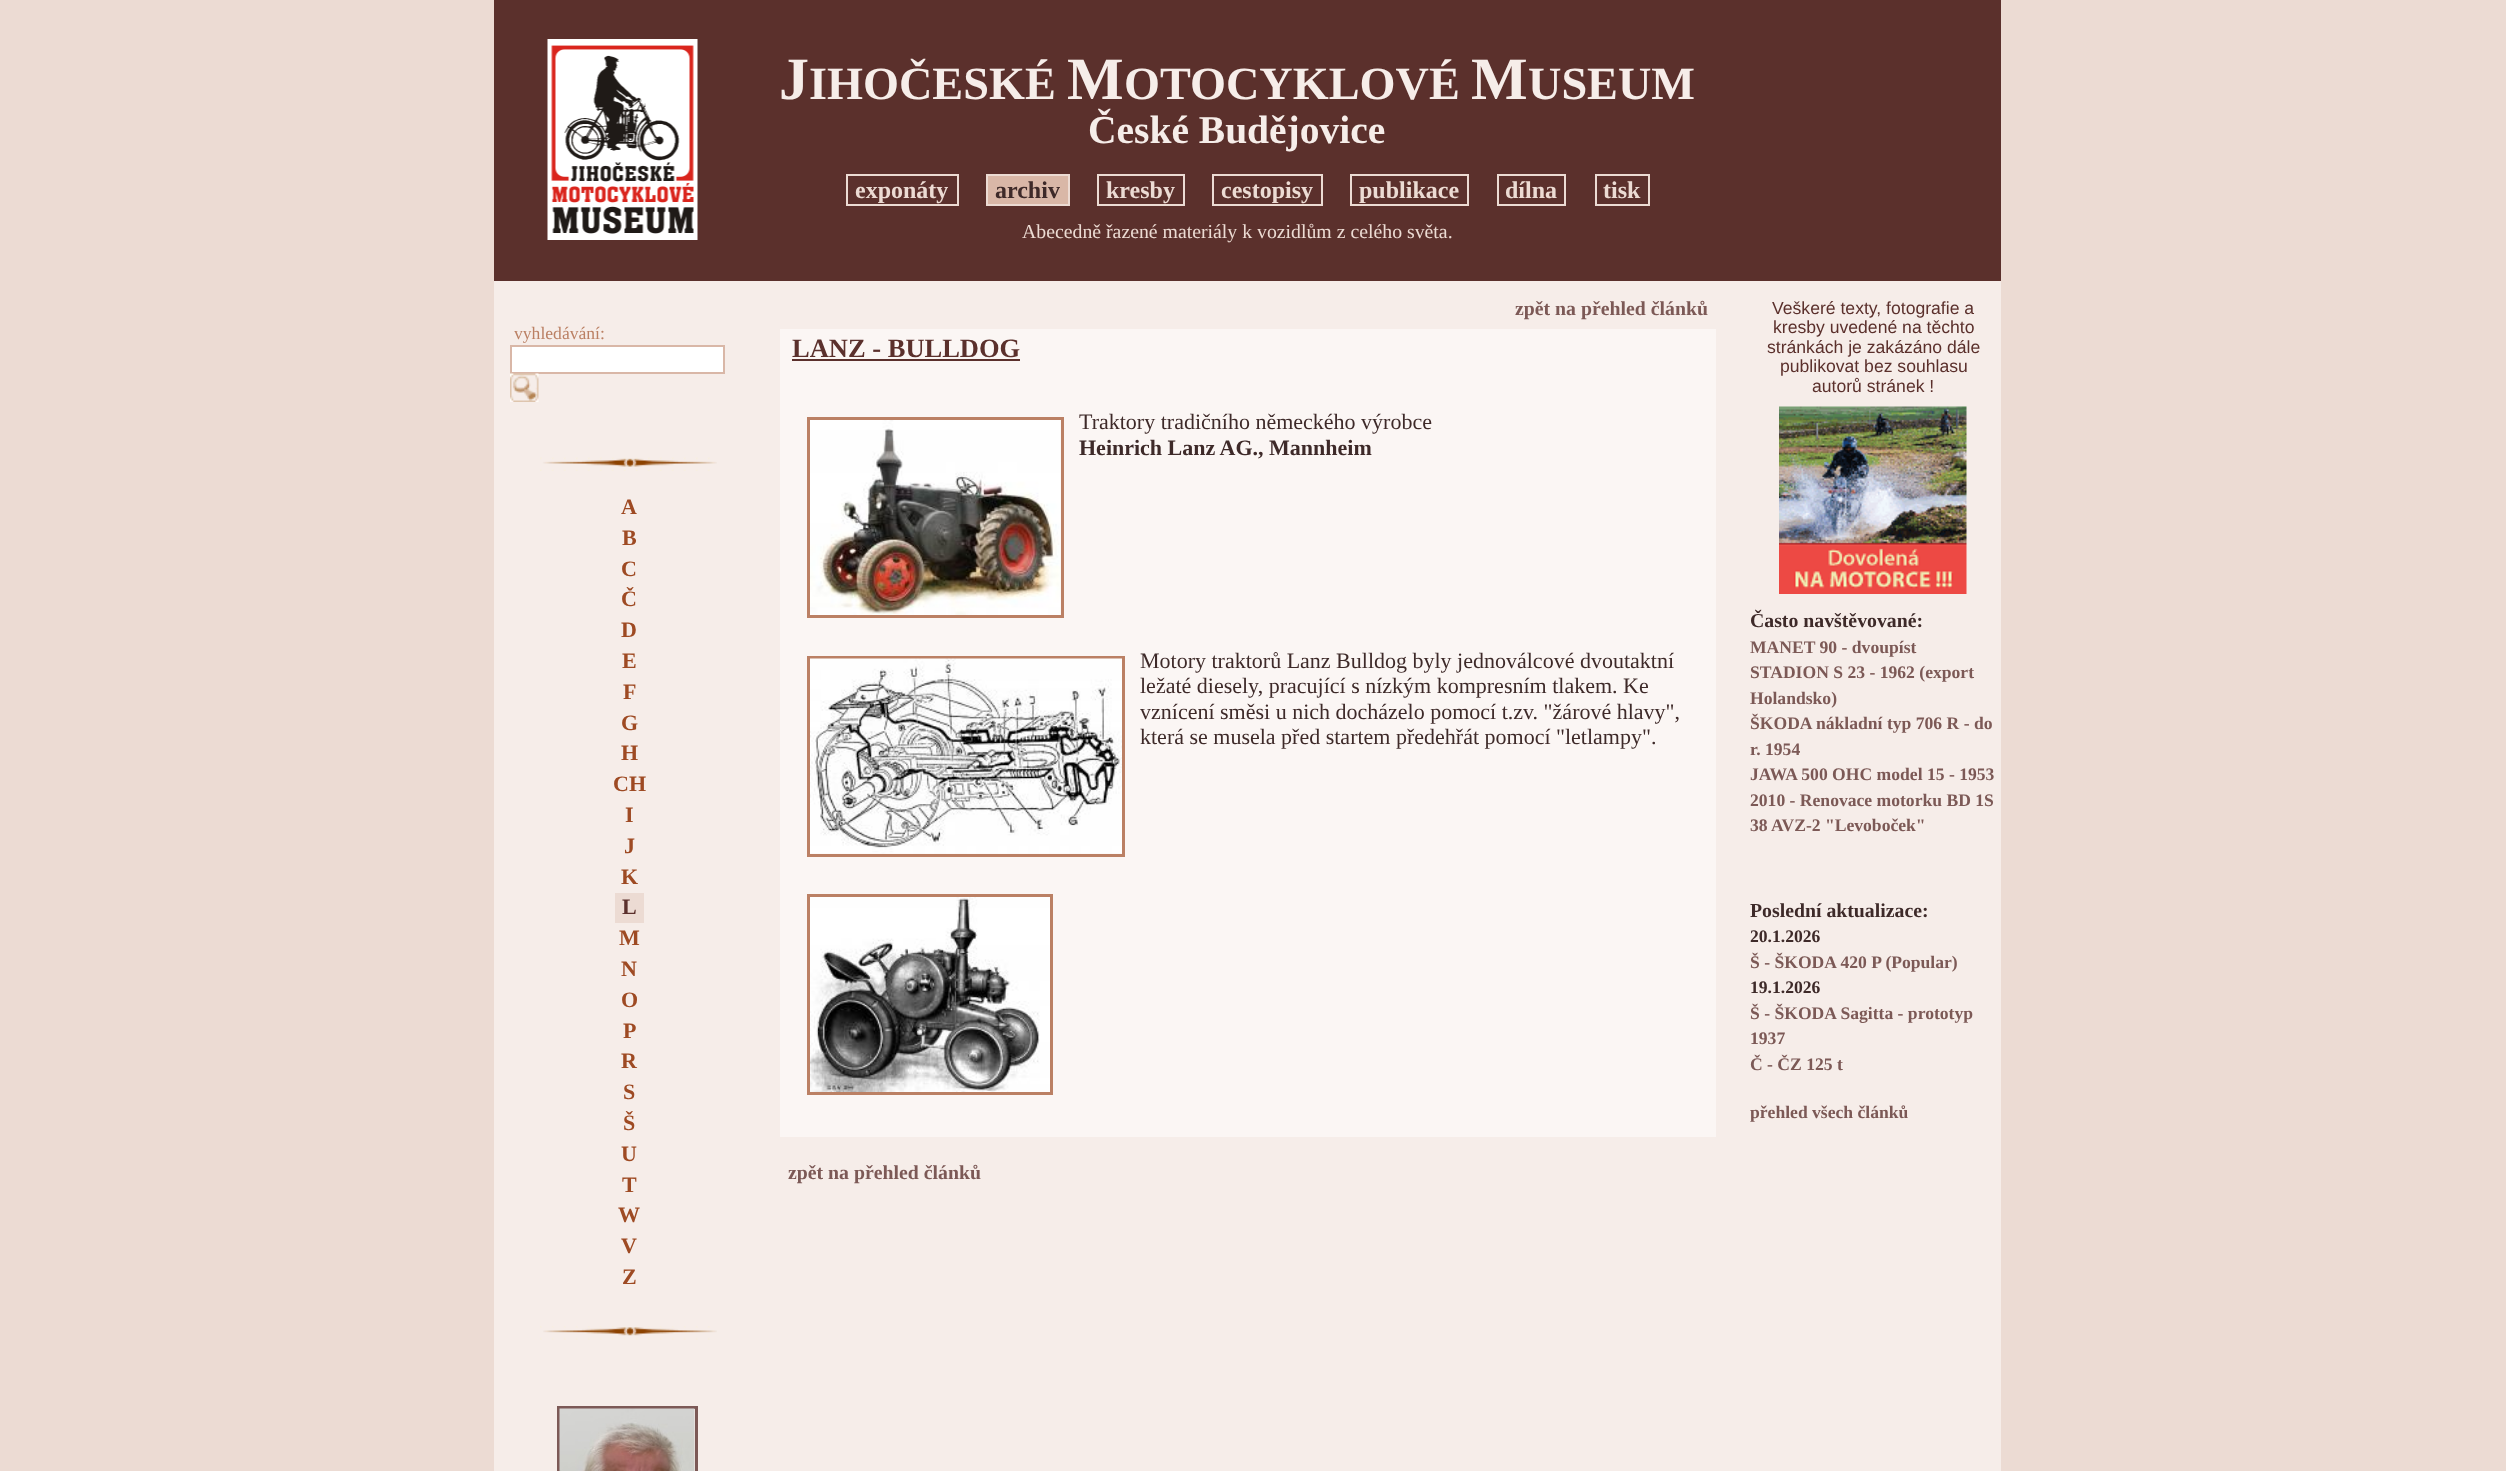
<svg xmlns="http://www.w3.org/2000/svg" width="2506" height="1471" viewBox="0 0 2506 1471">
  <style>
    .t1 { font: bold 60px Liberation Serif; fill: #f6ede9; }
    .t2 { font: bold 46.25px Liberation Serif; fill: #f6ede9; }
    .t3 { font: bold 39.5px Liberation Serif; fill: #f6ede9; }
    .t4 { font: bold 24px Liberation Serif; fill: #ecdbd3; }
    .t5 { font: bold 24px Liberation Serif; fill: #3e2a29; }
    .t6 { font: 19.8px Liberation Serif; fill: #ecdbd3; }
    .t7 { font: bold 19.8px Liberation Serif; fill: #7c5956; }
    .t8 { font: bold 26.5px Liberation Serif; fill: #5b302c; }
    .t9 { font: 22px Liberation Serif; fill: #3e2a29; }
    .t10 { font: bold 22px Liberation Serif; fill: #3e2a29; }
    .t11 { font: 17.6px Liberation Serif; fill: #bb8064; }
    .t12 { font: bold 22px Liberation Serif; fill: #9e4a23; }
    .t13 { font: bold 22px Liberation Serif; fill: #5b302c; }
    .t14 { font: 17.6px Liberation Sans; fill: #5b302c; }
    .t15 { font: bold 19.8px Liberation Serif; fill: #3e2a29; }
    .t16 { font: bold 17.6px Liberation Serif; fill: #7c5956; }
    .t17 { font: bold 17.6px Liberation Serif; fill: #3e2a29; }
  </style>
  <rect width="100%" height="100%" fill="#ecdbd3"/>
  <rect x="494" y="281" width="1507" height="1190" fill="#f6ede9"/>
  <rect x="494" y="0" width="1507" height="3" fill="#5b302c"/>
  <rect x="494" y="3" width="256" height="278" fill="#5b302c"/>
  <image x="547" y="39" width="151" height="201" href="images/1.png"/>
  <rect x="750" y="3" width="996" height="278" fill="#5b302c"/>
  <text x="779" y="99" class="t1">J</text>
  <text x="809" y="99" class="t2">IHOČESKÉ</text>
  <text x="1067" y="99" class="t1">M</text>
  <text x="1124" y="99" class="t2">OTOCYKLOVÉ</text>
  <text x="1471" y="99" class="t1">M</text>
  <text x="1528" y="99" class="t2">USEUM</text>
  <text x="1088" y="143" class="t3">České Budějovice</text>
  <rect x="1746" y="3" width="255" height="278" fill="#5b302c"/>
  <rect x="847" y="175" width="111" height="30" fill="none" stroke="#ecdbd3" stroke-width="2"/>
  <text x="855" y="198" class="t4">exponáty</text>
  <rect x="987" y="175" width="82" height="30" fill="#d9b7a7" stroke="#ecdbd3" stroke-width="2"/>
  <text x="995" y="198" class="t5">archiv</text>
  <rect x="1098" y="175" width="86" height="30" fill="none" stroke="#ecdbd3" stroke-width="2"/>
  <text x="1106" y="198" class="t4">kresby</text>
  <rect x="1213" y="175" width="109" height="30" fill="none" stroke="#ecdbd3" stroke-width="2"/>
  <text x="1221" y="198" class="t4">cestopisy</text>
  <rect x="1351" y="175" width="117" height="30" fill="none" stroke="#ecdbd3" stroke-width="2"/>
  <text x="1359" y="198" class="t4">publikace</text>
  <rect x="1498" y="175" width="67" height="30" fill="none" stroke="#ecdbd3" stroke-width="2"/>
  <text x="1505" y="198" class="t4">dílna</text>
  <rect x="1596" y="175" width="53" height="30" fill="none" stroke="#ecdbd3" stroke-width="2"/>
  <text x="1603" y="198" class="t4">tisk</text>
  <text x="1022" y="238" class="t6">Abecedně řazené materiály k vozidlům z celého světa.</text>
  <text x="1515" y="315" class="t7">zpět na přehled článků</text>
  <rect x="780" y="329" width="936" height="808" fill="#fbf6f4"/>
  <text x="792" y="357" class="t8">LANZ - BULLDOG</text>
  <rect x="792" y="359" width="228" height="2" fill="#5b302c"/>
  <rect x="808.5" y="418.5" width="254" height="198" fill="none" stroke="#bb8064" stroke-width="3"/>
  <image x="810" y="420" width="251" height="195" href="images/2.png"/>
  <text x="1079" y="429" class="t9">Traktory tradičního německého výrobce</text>
  <text x="1079" y="455" class="t10">Heinrich Lanz AG., Mannheim</text>
  <rect x="808.5" y="657.5" width="315" height="198" fill="none" stroke="#bb8064" stroke-width="3"/>
  <image x="810" y="658" width="312" height="196" href="images/3.png"/>
  <text x="1140" y="668" class="t9">Motory traktorů Lanz Bulldog byly jednoválcové dvoutaktní</text>
  <text x="1140" y="693" class="t9">ležaté diesely, pracující s nízkým kompresním tlakem. Ke</text>
  <text x="1140" y="719" class="t9">vznícení směsi u nich docházelo pomocí t.zv. "žárové hlavy",</text>
  <text x="1140" y="744" class="t9">která se musela před startem předehřát pomocí "letlampy".</text>
  <rect x="808.5" y="895.5" width="243" height="198" fill="none" stroke="#bb8064" stroke-width="3"/>
  <image x="810" y="897" width="240" height="195" href="images/4.png"/>
  <text x="788" y="1179" class="t7">zpět na přehled článků</text>
  <text x="514" y="339" class="t11">vyhledávání:</text>
  <rect x="511" y="346" width="213" height="27" fill="#fff" stroke="#d9b7a7" stroke-width="2"/>
  <image x="510" y="373" width="29" height="29" href="images/5.png"/>
  <image x="540" y="457" width="177" height="14" href="images/6.png"/>
  <text x="621" y="514" class="t12">A</text>
  <text x="622" y="545" class="t12">B</text>
  <text x="621" y="576" class="t12">C</text>
  <text x="621" y="606" class="t12">Č</text>
  <text x="621" y="637" class="t12">D</text>
  <text x="622" y="668" class="t12">E</text>
  <text x="623" y="699" class="t12">F</text>
  <text x="621" y="730" class="t12">G</text>
  <text x="621" y="760" class="t12">H</text>
  <text x="613" y="791" class="t12">CH</text>
  <text x="625" y="822" class="t12">I</text>
  <text x="624" y="853" class="t12">J</text>
  <text x="621" y="884" class="t12">K</text>
  <rect x="615" y="893" width="29" height="30" fill="#ecdbd3"/>
  <text x="622" y="914" class="t13">L</text>
  <text x="619" y="945" class="t12">M</text>
  <text x="621" y="976" class="t12">N</text>
  <text x="621" y="1007" class="t12">O</text>
  <text x="623" y="1038" class="t12">P</text>
  <text x="621" y="1068" class="t12">R</text>
  <text x="623" y="1099" class="t12">S</text>
  <text x="623" y="1130" class="t12">Š</text>
  <text x="621" y="1161" class="t12">U</text>
  <text x="622" y="1192" class="t12">T</text>
  <text x="618" y="1222" class="t12">W</text>
  <text x="621" y="1253" class="t12">V</text>
  <text x="622" y="1284" class="t12">Z</text>
  <image x="540" y="1326" width="177" height="14" href="images/7.png"/>
  <rect x="558.5" y="1407.5" width="138" height="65" fill="none" stroke="#7c5956" stroke-width="3"/>
  <image x="559" y="1408" width="136" height="63" href="images/8.png"/>
  <text x="1772" y="314" class="t14">Veškeré texty, fotografie a</text>
  <text x="1773" y="333" class="t14">kresby uvedené na těchto</text>
  <text x="1767" y="353" class="t14">stránkách je zakázáno dále</text>
  <text x="1780" y="372" class="t14">publikovat bez souhlasu</text>
  <text x="1812" y="392" class="t14">autorů stránek !</text>
  <image x="1779" y="406" width="188" height="188" href="images/9.png"/>
  <text x="1750" y="627" class="t15">Často navštěvované:</text>
  <text x="1750" y="653" class="t16">MANET 90 - dvoupíst</text>
  <text x="1750" y="678" class="t16">STADION S 23 - 1962 (export</text>
  <text x="1750" y="704" class="t16">Holandsko)</text>
  <text x="1750" y="729" class="t16">ŠKODA nákladní typ 706 R - do</text>
  <text x="1750" y="755" class="t16">r. 1954</text>
  <text x="1750" y="780" class="t16">JAWA 500 OHC model 15 - 1953</text>
  <text x="1750" y="806" class="t16">2010 - Renovace motorku BD 1S</text>
  <text x="1750" y="831" class="t16">38 AVZ-2 "Levoboček"</text>
  <text x="1750" y="917" class="t15">Poslední aktualizace:</text>
  <text x="1750" y="942" class="t17">20.1.2026</text>
  <text x="1750" y="968" class="t16">Š - ŠKODA 420 P (Popular)</text>
  <text x="1750" y="993" class="t17">19.1.2026</text>
  <text x="1750" y="1019" class="t16">Š - ŠKODA Sagitta - prototyp</text>
  <text x="1750" y="1044" class="t16">1937</text>
  <text x="1750" y="1070" class="t16">Č - ČZ 125 t</text>
  <text x="1750" y="1118" class="t16">přehled všech článků</text>
</svg>
